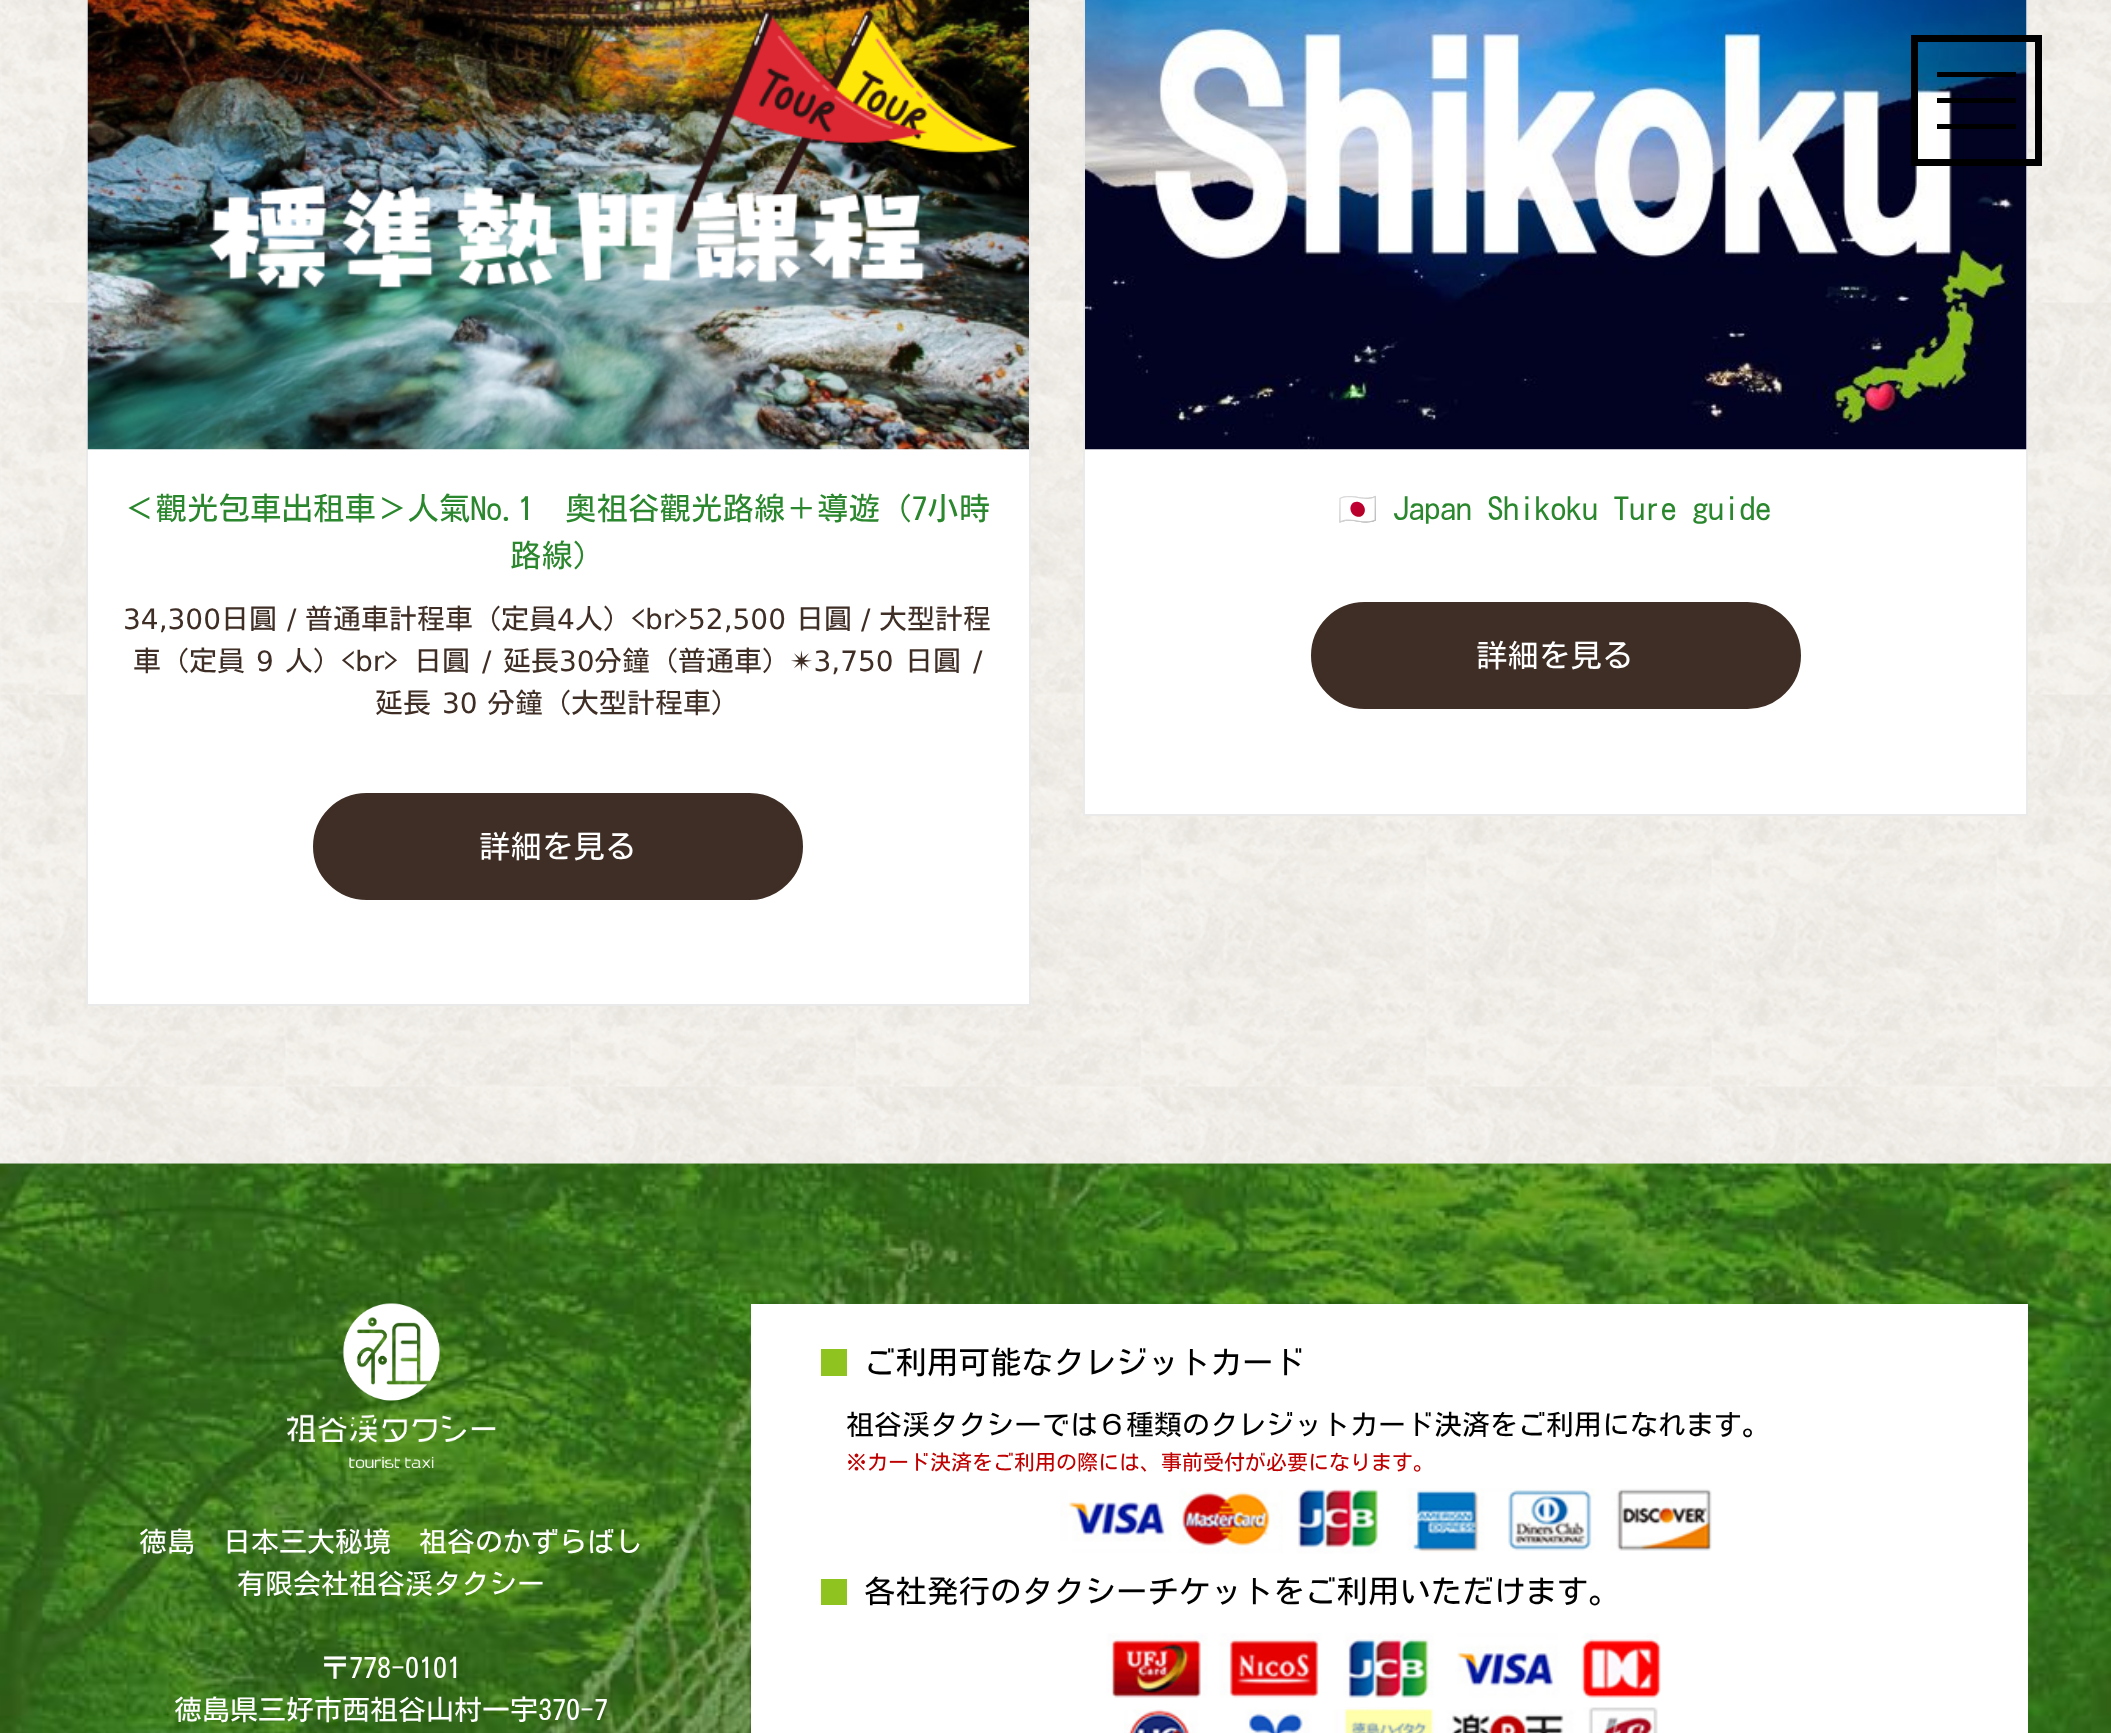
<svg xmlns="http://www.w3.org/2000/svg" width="2111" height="1733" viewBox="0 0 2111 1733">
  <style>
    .t1 { font: 31.5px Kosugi; fill: #2b872e; }
    .t2 { font: 28px DejaVu Sans; fill: #3f2e25; }
    .t3 { font: 28px Kosugi; fill: #3f2e25; }
    .t4 { font: 31.5px Kosugi; fill: #fff; }
    .t5 { font: 31.5px Noto Color Emoji; fill: #2b872e; }
    .t6 { font: 31.5px Kosugi; fill: #000; }
    .t7 { font: 28px Kosugi; fill: #000; }
    .t8 { font: 21px Kosugi; fill: #be0000; }
    .t9 { font: 28px Kosugi; fill: #fff; }
  </style>
  <rect width="100%" height="100%" fill="#fff"/>
  <image x="0" y="0" width="2111" height="1164" href="images/1.png"/>
  <rect x="1085" y="449" width="941" height="365" fill="#fff"/>
  <rect x="1084" y="-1" width="943" height="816" fill="none" stroke="#eaeaea" stroke-width="2"/>
  <image x="1085" y="0" width="942" height="450" href="images/3.png"/>
  <rect x="1914.5" y="38.5" width="124" height="124" fill="none" stroke="#000" stroke-width="7"/>
  <rect x="1937" y="72" width="79" height="5" fill="#000"/>
  <rect x="1937" y="98" width="79" height="5" fill="#000"/>
  <rect x="1937" y="124" width="79" height="5" fill="#000"/>
  <rect x="88" y="449" width="941" height="555" fill="#fff"/>
  <rect x="87" y="-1" width="943" height="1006" fill="none" stroke="#eaeaea" stroke-width="2"/>
  <image x="87" y="0" width="942" height="450" href="images/2.png"/>
  <text x="124" y="520" class="t1">＜觀光包車出租車＞人氣No.1　奧祖谷觀光路線＋導遊（7小時</text>
  <text x="510" y="567" class="t1">路線）</text>
  <text x="123" y="629" class="t2">34,300</text>
  <text x="221" y="629" class="t3">日圓</text>
  <text x="287" y="629" class="t2">/</text>
  <text x="305" y="629" class="t3">普通車計程車（定員</text>
  <text x="557" y="629" class="t2">4</text>
  <text x="575" y="629" class="t3">人）&lt;</text>
  <text x="645" y="629" class="t2">br</text>
  <text x="674" y="629" class="t3">&gt;</text>
  <text x="688" y="629" class="t2">52,500</text>
  <text x="796" y="629" class="t3">日圓</text>
  <text x="861" y="629" class="t2">/</text>
  <text x="879" y="629" class="t3">大型計程</text>
  <text x="133" y="671" class="t3">車（定員</text>
  <text x="256" y="671" class="t2">9</text>
  <text x="285" y="671" class="t3">人）&lt;</text>
  <text x="355" y="671" class="t2">br</text>
  <text x="384" y="671" word-spacing="2" class="t3">&gt; 日圓</text>
  <text x="482" y="671" class="t2">/</text>
  <text x="503" y="671" class="t3">延長</text>
  <text x="559" y="671" class="t2">30</text>
  <text x="594" y="671" class="t3">分鐘（普通車）</text>
  <text x="790" y="671" class="t2">✴︎3,750</text>
  <text x="905" y="671" class="t3">日圓</text>
  <text x="973" y="671" class="t2">/</text>
  <text x="375" y="713" class="t3">延長</text>
  <text x="442" y="713" class="t2">30</text>
  <text x="487" y="713" class="t3">分鐘（大型計程車）</text>
  <rect x="315" y="795" width="486" height="103" rx="51.5" fill="#3f2e25" stroke="#3f2e25" stroke-width="4"/>
  <text x="479" y="858" class="t4">詳細を見る</text>
  <text x="1338" y="520" class="t5">🇯🇵</text>
  <text x="1393" y="520" class="t1">Japan Shikoku Ture guide</text>
  <rect x="1313" y="604" width="486" height="103" rx="51.5" fill="#3f2e25" stroke="#3f2e25" stroke-width="4"/>
  <text x="1476" y="667" class="t4">詳細を見る</text>
  <image x="0" y="1163" width="2111" height="570" href="images/4.png"/>
  <rect x="751" y="1304" width="1277" height="429" fill="#fff"/>
  <rect x="821" y="1349" width="26" height="27" fill="#8fc31f"/>
  <text x="864" y="1374" class="t6">ご利用可能なクレジットカード</text>
  <text x="846" y="1435" class="t7">祖谷渓タクシーでは６種類のクレジットカード決済をご利用になれます。</text>
  <text x="846" y="1470" class="t8">※カード決済をご利用の際には、事前受付が必要になります。</text>
  <image x="1060" y="1488" width="652" height="66" href="images/5.png"/>
  <rect x="821" y="1579" width="26" height="26" fill="#8fc31f"/>
  <text x="864" y="1603" class="t6">各社発行のタクシーチケットをご利用いただけます。</text>
  <image x="1106" y="1633" width="555" height="65" href="images/6.png"/>
  <image x="1124" y="1707" width="534" height="26" href="images/7.png"/>
  <image x="287" y="1303" width="209" height="165" href="images/8.png"/>
  <text x="139" y="1552" class="t9">徳島　日本三大秘境　祖谷のかずらばし</text>
  <text x="237" y="1594" class="t9">有限会社祖谷渓タクシー</text>
  <text x="321" y="1678" class="t9">〒778-0101</text>
  <text x="174" y="1720" class="t9">徳島県三好市西祖谷山村一宇370-7</text>
</svg>
